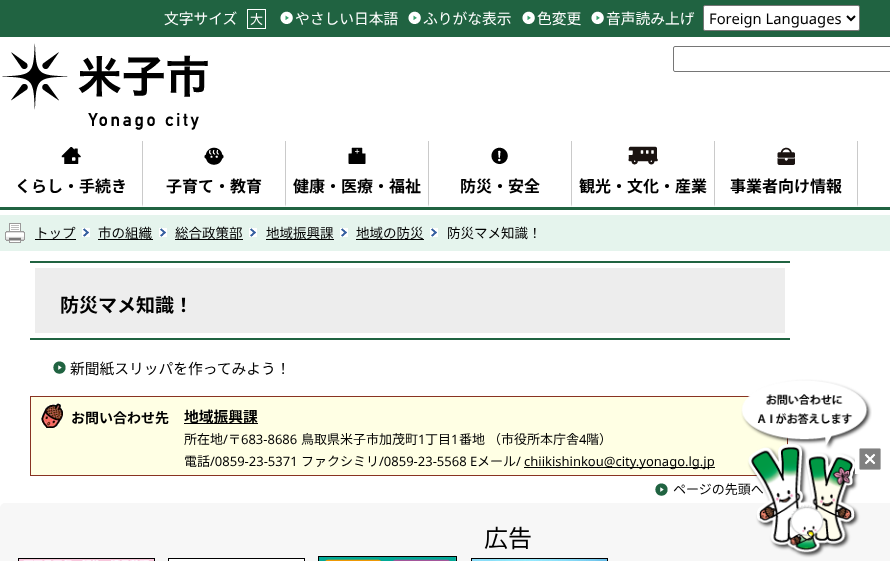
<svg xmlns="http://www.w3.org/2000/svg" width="890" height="561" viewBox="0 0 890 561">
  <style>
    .t1 { font: 14.75px Noto Sans JP; fill: #fff; }
    .t2 { font: 13px Noto Sans JP; fill: #fff; }
    .t3 { font: 14.75px Noto Sans; fill: #000; }
    .t4 { font: bold 16px Noto Sans JP; fill: #000; }
    .t5 { font: 13.5px Noto Sans JP; fill: #000; }
    .t6 { font: bold 19px Noto Sans JP; fill: #000; }
    .t7 { font: 14.75px Noto Sans JP; fill: #000; }
    .t8 { font: bold 14px Noto Sans JP; fill: #000; }
    .t9 { font: bold 14.75px Noto Sans JP; fill: #000; }
    .t10 { font: 13px Noto Sans JP; fill: #000; }
    .t11 { font: 13px Noto Sans; fill: #000; }
    .t12 { font: 24px Noto Sans JP; fill: #000; }
  </style>
  <rect width="100%" height="100%" fill="#fff"/>
  <rect x="0" y="0" width="890" height="37" fill="#206341"/>
  <text x="164" y="24" class="t1">文字サイズ</text>
  <rect x="247.5" y="9.5" width="18" height="19" fill="none" stroke="#fff"/>
  <text x="250" y="24" class="t2">大</text>
  <image x="280" y="11" width="13" height="13" href="images/1.png"/>
  <text x="295" y="24" class="t1">やさしい日本語</text>
  <image x="408" y="11" width="13" height="13" href="images/1.png"/>
  <text x="423" y="24" class="t1">ふりがな表示</text>
  <image x="522" y="11" width="13" height="13" href="images/1.png"/>
  <text x="537" y="24" class="t1">色変更</text>
  <image x="591" y="11" width="13" height="13" href="images/1.png"/>
  <text x="606" y="24" class="t1">音声読み上げ</text>
  <rect x="703.5" y="5.5" width="156" height="25" rx="1.5" fill="#fff" stroke="#767676"/>
  <path d="M847 16L851 20L855 16" fill="none" stroke="#000" stroke-width="2"/>
  <text x="709" y="24" class="t3">Foreign Languages</text>
  <image x="2" y="43" width="206" height="87" href="images/2.png"/>
  <rect x="673.5" y="46.5" width="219" height="25" rx="1.5" fill="none" stroke="#767676"/>
  <rect x="0" y="207" width="890" height="3" fill="#206341"/>
  <image x="61" y="147" width="20" height="17" href="images/3.png"/>
  <text x="15" y="192" class="t4">くらし・手続き</text>
  <path d="M142 207V141H143V204Z" fill="#cacaca"/>
  <image x="204" y="147" width="20" height="18" href="images/4.png"/>
  <text x="166" y="192" class="t4">子育て・教育</text>
  <path d="M285 207V141H286V204Z" fill="#cacaca"/>
  <image x="348" y="147" width="18" height="17" href="images/5.png"/>
  <text x="293" y="192" class="t4">健康・医療・福祉</text>
  <path d="M428 207V141H429V204Z" fill="#cacaca"/>
  <image x="491" y="147" width="17" height="17" href="images/6.png"/>
  <text x="460" y="192" class="t4">防災・安全</text>
  <path d="M571 207V141H572V204Z" fill="#cacaca"/>
  <image x="628" y="146" width="30" height="19" href="images/7.png"/>
  <text x="579" y="192" class="t4">観光・文化・産業</text>
  <path d="M714 207V141H715V204Z" fill="#cacaca"/>
  <image x="777" y="147" width="18" height="18" href="images/8.png"/>
  <text x="730" y="192" class="t4">事業者向け情報</text>
  <path d="M857 207V141H858V204Z" fill="#cacaca"/>
  <rect x="0" y="215" width="890" height="36" fill="#e5f4ed"/>
  <image x="5" y="223" width="20" height="20" href="images/9.png"/>
  <text x="35" y="238" class="t5">トップ</text>
  <rect x="35" y="239" width="41" height="1" fill="#000"/>
  <image x="82" y="228" width="8" height="9" href="images/10.png"/>
  <rect x="98" y="239" width="55" height="1" fill="#000"/>
  <text x="98" y="238" class="t5">市の組織</text>
  <image x="159" y="228" width="8" height="9" href="images/10.png"/>
  <rect x="175" y="239" width="68" height="1" fill="#000"/>
  <text x="175" y="238" class="t5">総合政策部</text>
  <image x="249" y="228" width="8" height="9" href="images/10.png"/>
  <rect x="266" y="239" width="68" height="1" fill="#000"/>
  <text x="266" y="238" class="t5">地域振興課</text>
  <image x="340" y="228" width="8" height="9" href="images/10.png"/>
  <rect x="356" y="239" width="68" height="1" fill="#000"/>
  <text x="356" y="238" class="t5">地域の防災</text>
  <image x="430" y="228" width="8" height="9" href="images/10.png"/>
  <text x="447" y="238" class="t5">防災マメ知識！</text>
  <rect x="30" y="261" width="760" height="2" fill="#206341"/>
  <rect x="30" y="338" width="760" height="2" fill="#206341"/>
  <rect x="35" y="268" width="750" height="65" fill="#ededed"/>
  <text x="60" y="312" class="t6">防災マメ知識！</text>
  <image x="53" y="361" width="13" height="13" href="images/11.png"/>
  <text x="70" y="374" class="t7">新聞紙スリッパを作ってみよう！</text>
  <rect x="30.5" y="396.5" width="757" height="79" fill="#ffffe4" stroke="#832"/>
  <image x="41" y="403" width="22" height="25" href="images/12.png"/>
  <text x="71" y="423" class="t8">お問い合わせ先</text>
  <rect x="184" y="423" width="74" height="1" fill="#000"/>
  <text x="184" y="422" class="t9">地域振興課</text>
  <text x="184" y="444" class="t10">所在地</text>
  <text x="223" y="444" class="t11">/</text>
  <text x="228" y="444" class="t10">〒</text>
  <text x="241" y="444" class="t11">683-8686</text>
  <text x="301" y="444" class="t10">鳥取県米子市加茂町</text>
  <text x="418" y="444" class="t11">1</text>
  <text x="425" y="444" class="t10">丁目</text>
  <text x="451" y="444" class="t11">1</text>
  <text x="459" y="444" class="t10">番地 （市役所本庁舎</text>
  <text x="579" y="444" class="t11">4</text>
  <text x="586" y="444" class="t10">階）</text>
  <text x="184" y="466" class="t10">電話</text>
  <text x="210" y="466" class="t11">/0859-23-5371</text>
  <text x="301" y="466" class="t10">ファクシミリ</text>
  <text x="379" y="466" class="t11">/0859-23-5568 E</text>
  <text x="477" y="466" class="t10">メール</text>
  <text x="516" y="466" class="t11">/</text>
  <rect x="524" y="467" width="191" height="1" fill="#000"/>
  <text x="524" y="466" class="t11">chiikishinkou@city.yonago.lg.jp</text>
  <image x="655" y="483" width="13" height="13" href="images/11.png"/>
  <text x="673" y="494" class="t10">ページの先頭へ</text>
  <rect x="0" y="503" width="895" height="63" rx="5" fill="#f7f7f7"/>
  <image x="741" y="379" width="131" height="179" href="images/17.png"/>
  <image x="855" y="448" width="26" height="26" href="images/13.png"/>
  <text x="484" y="547" class="t12">広告</text>
  <rect x="18.5" y="558.5" width="136" height="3" fill="none" stroke="#000"/>
  <image x="19" y="559" width="135" height="2" href="images/14.png"/>
  <rect x="168.5" y="558.5" width="136" height="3" fill="none" stroke="#000"/>
  <rect x="169" y="559" width="135" height="2" fill="#fff"/>
  <rect x="318.5" y="556.5" width="138" height="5" fill="none" stroke="#000"/>
  <image x="319" y="557" width="137" height="4" href="images/15.png"/>
  <rect x="471.5" y="558.5" width="136" height="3" fill="none" stroke="#000"/>
  <image x="472" y="559" width="135" height="2" href="images/16.png"/>
</svg>
